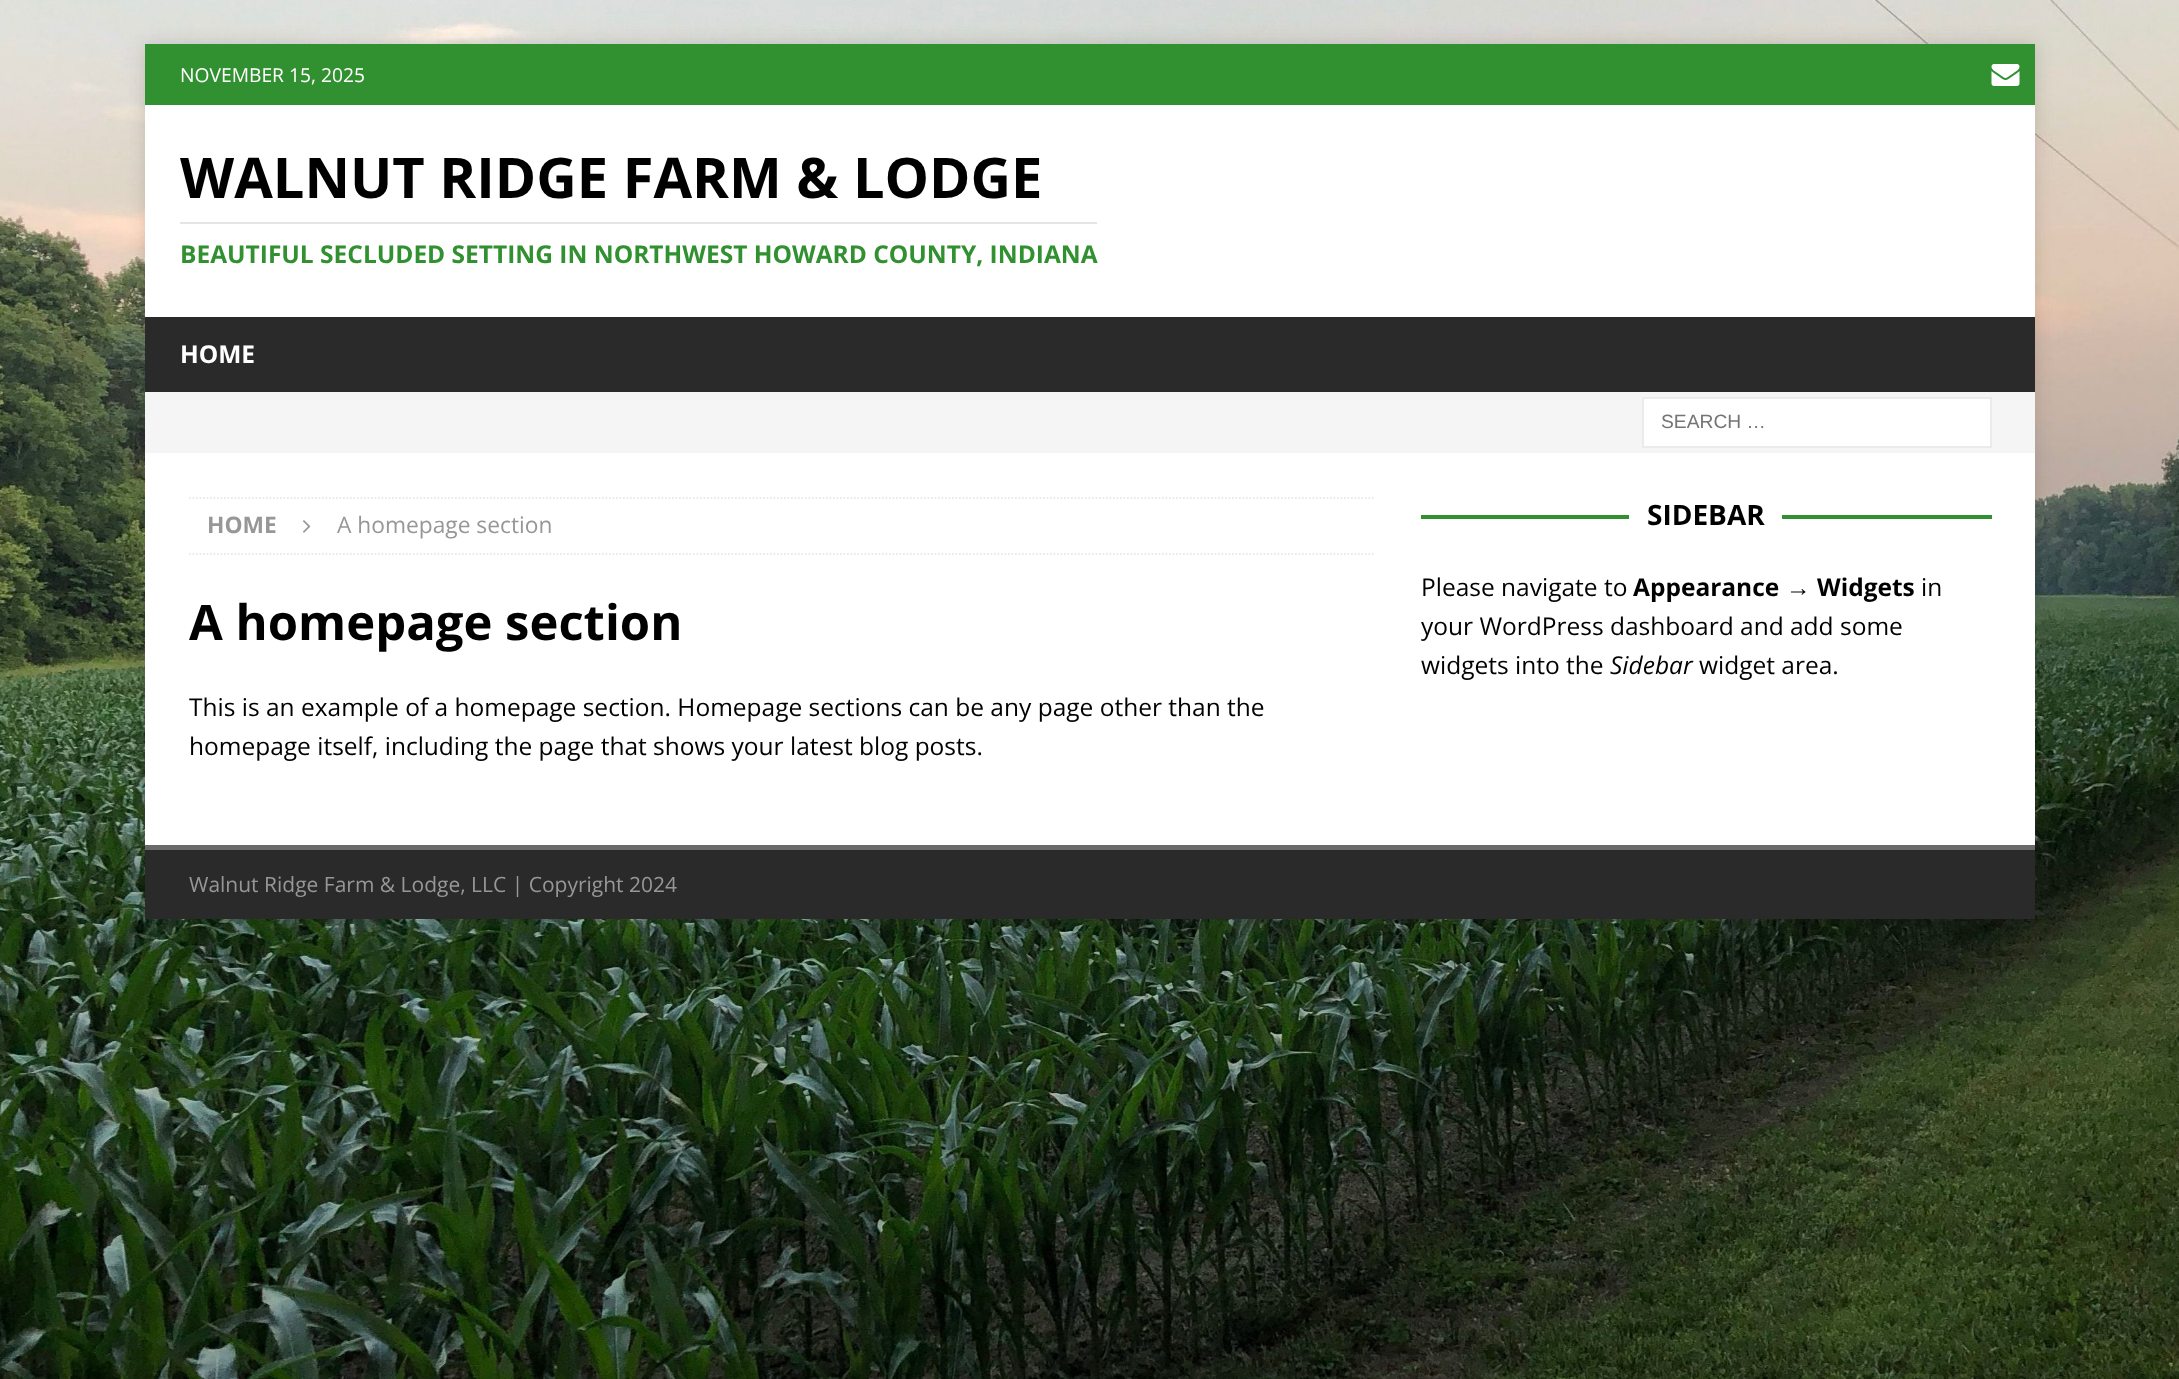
<svg xmlns="http://www.w3.org/2000/svg" width="2179" height="1379" viewBox="0 0 2179 1379">
  <style>
    .t1 { font: 19.25px Open Sans; fill: #fff; }
    .t2 { font: bold 56px Open Sans; fill: #000; }
    .t3 { font: bold 24.5px Open Sans; fill: #319131; }
    .t4 { font: bold 24.5px Open Sans; fill: #fff; }
    .t5 { font: 19.25px Liberation Sans; fill: #757575; }
    .t6 { font: bold 22.75px Open Sans; fill: #979797; }
    .t7 { font: 22.75px Open Sans; fill: #979797; }
    .t8 { font: bold 49px Open Sans; fill: #000; }
    .t9 { font: 24.5px Open Sans; fill: #000; }
    .t10 { font: bold 28px Open Sans; fill: #000; }
    .t11 { font: bold 24.5px Open Sans; fill: #000; }
    .t12 { font: bold 24.5px Liberation Sans; fill: #000; }
    .t13 { font: italic 24.5px Open Sans; fill: #000; }
    .t14 { font: 21px Open Sans; fill: #979797; }
  </style>
  <defs>
    <clipPath id="clip1"><rect x="1421" y="497" width="571" height="189"/></clipPath>
  </defs>
  <rect width="100%" height="100%" fill="#fff"/>
  <image x="0" y="0" width="2179" height="1379" href="images/1.png"/>
  <rect x="145" y="44" width="1890" height="875" fill="#3232322b" filter="blur(9px)"/>
  <rect x="145" y="44" width="1890" height="61" fill="#319131"/>
  <text x="180" y="82" class="t1">NOVEMBER 15, 2025</text>
  <image x="1991" y="64" width="29" height="22" href="images/2.png"/>
  <rect x="145" y="105" width="1890" height="212" fill="#fff"/>
  <text x="180" y="198" class="t2">WALNUT RIDGE FARM &amp; LODGE</text>
  <rect x="180" y="222" width="917" height="2" fill="#e5e5e5"/>
  <text x="180" y="263" class="t3">BEAUTIFUL SECLUDED SETTING IN NORTHWEST HOWARD COUNTY, INDIANA</text>
  <rect x="145" y="317" width="1890" height="75" fill="#2a2a2a"/>
  <text x="180" y="363" class="t4">HOME</text>
  <rect x="145" y="392" width="1890" height="61" fill="#f5f5f5"/>
  <rect x="1643" y="398" width="348" height="49" fill="#fff" stroke="#ebebeb" stroke-width="2"/>
  <text x="1661" y="428" class="t5">SEARCH …</text>
  <rect x="145" y="453" width="1890" height="392" fill="#fff"/>
  <path d="M189 498H1375.5" fill="none" stroke="#ebebeb" stroke-width="1.8" stroke-dasharray="1.75 1.75"/>
  <path d="M189 554H1375.5" fill="none" stroke="#ebebeb" stroke-width="1.8" stroke-dasharray="1.75 1.75"/>
  <text x="207" y="533" class="t6">HOME</text>
  <image x="303" y="520" width="8" height="13" href="images/3.png"/>
  <text x="337" y="533" class="t7">A homepage section</text>
  <text x="189" y="640" class="t8">A homepage section</text>
  <text x="189" y="716" class="t9">This is an example of a homepage section. Homepage sections can be any page other than the</text>
  <text x="189" y="755" class="t9">homepage itself, including the page that shows your latest blog posts.</text>
  <rect x="1421" y="515" width="571" height="4" fill="#319131"/>
  <rect x="1629" y="515" width="153" height="4" fill="#fff"/>
  <text x="1647" y="525" class="t10">SIDEBAR</text>
  <text x="1421" y="596" class="t9">Please navigate to</text>
  <text x="1633" y="596" class="t11">Appearance</text>
  <text x="1786" y="596" class="t12">→</text>
  <text x="1817" y="596" class="t11">Widgets</text>
  <text x="1921" y="596" class="t9">in</text>
  <g clip-path="url(#clip1)">
    <text x="1421" y="635" class="t9">your WordPress dashboard and add some</text>
  </g>
  <text x="1421" y="674" class="t9">widgets into the</text>
  <text x="1610" y="674" class="t13">Sidebar</text>
  <text x="1699" y="674" class="t9">widget area.</text>
  <rect x="145" y="850" width="1890" height="69" fill="#2a2a2a"/>
  <rect x="145" y="845" width="1890" height="5" fill="#6a6a6a"/>
  <text x="189" y="892" class="t14">Walnut Ridge Farm &amp; Lodge, LLC | Copyright 2024</text>
</svg>
